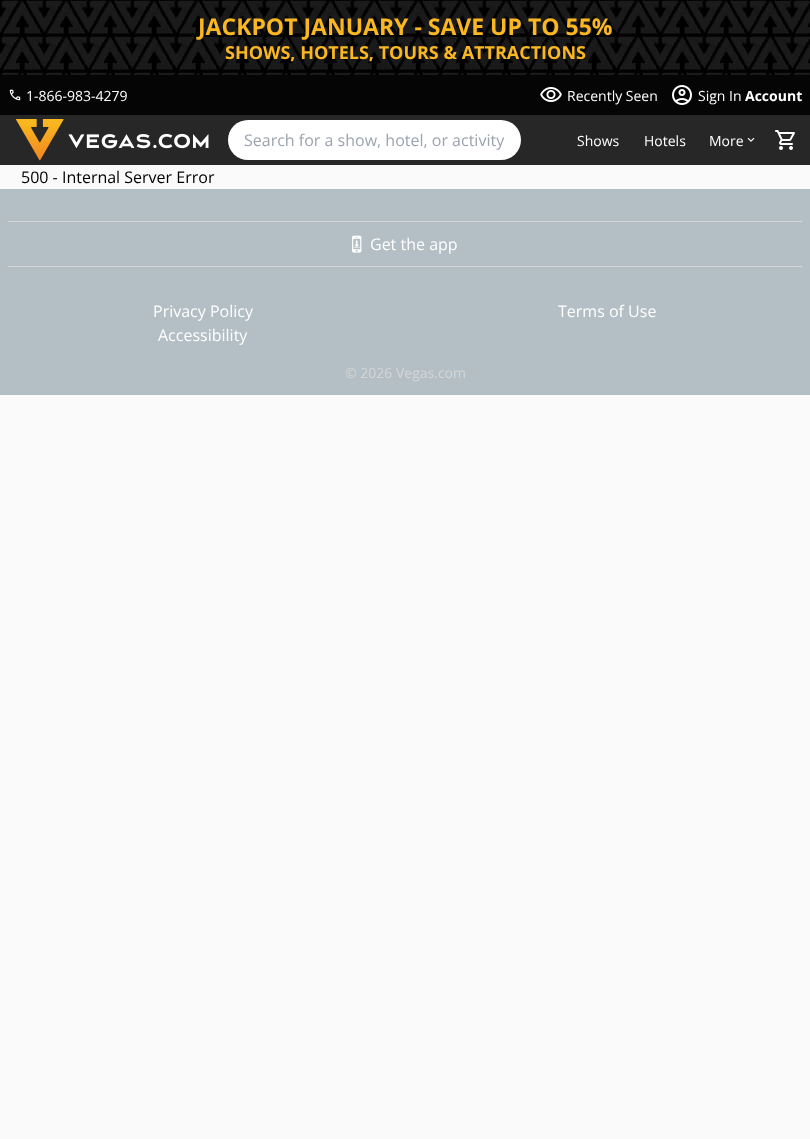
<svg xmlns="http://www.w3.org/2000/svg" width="810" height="1139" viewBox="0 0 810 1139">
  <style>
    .t1 { font: bold 23px Open Sans; fill: #fab721; }
    .t2 { font: bold 18px Open Sans; fill: #fab721; }
    .t3 { font: 14px Open Sans; fill: #fff; }
    .t4 { font: bold 14px Open Sans; fill: #fff; }
    .t5 { font: 16px Open Sans; fill: #9ca3af; }
    .t6 { font: 16px Open Sans; fill: #000; }
    .t7 { font: 18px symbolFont; fill: #fff; }
    .t8 { font: 16px Open Sans; fill: #fff; }
    .t9 { font: 14px Open Sans; fill: #d6d6d6; }
  </style>
  <rect width="100%" height="100%" fill="#fafafa"/>
  <image x="0" y="0" width="810" height="75" href="images/1.png"/>
  <text x="198" y="35" class="t1">JACKPOT JANUARY - SAVE UP TO 55%</text>
  <text x="225" y="59" class="t2">SHOWS, HOTELS, TOURS &amp; ATTRACTIONS</text>
  <rect x="0" y="75" width="810" height="40" fill="#050506"/>
  <image x="9" y="89" width="12" height="12" href="images/2.png"/>
  <text x="26" y="101" class="t3">1-866-983-4279</text>
  <image x="540" y="87" width="22" height="15" href="images/3.png"/>
  <text x="567" y="101" class="t3">Recently Seen</text>
  <image x="672" y="85" width="20" height="20" href="images/4.png"/>
  <text x="698" y="101" class="t3">Sign In</text>
  <text x="745" y="101" class="t4">Account</text>
  <rect x="0" y="115" width="810" height="50" fill="#272727"/>
  <image x="16" y="119" width="193" height="42" href="images/5.png"/>
  <rect x="228" y="120" width="293" height="40" rx="20" fill="#fff"/>
  <text x="244" y="146" class="t5">Search for a show, hotel, or activity</text>
  <text x="577" y="146" class="t3">Shows</text>
  <text x="644" y="146" class="t3">Hotels</text>
  <text x="709" y="146" class="t3">More</text>
  <image x="747" y="138" width="8" height="4" href="images/6.png"/>
  <image x="775" y="130" width="20" height="20" href="images/7.png"/>
  <text x="21" y="183" class="t6">500 - Internal Server Error</text>
  <rect x="0" y="189" width="810" height="206" fill="#b3bfc5"/>
  <rect x="8" y="221" width="794" height="1" fill="#d6d6d6"/>
  <rect x="8" y="266" width="794" height="1" fill="#d6d6d6"/>
  <text x="352" y="252" class="t7">📲</text>
  <text x="370" y="250" class="t8">Get the app</text>
  <text x="153" y="317" class="t8">Privacy Policy</text>
  <text x="558" y="317" class="t8">Terms of Use</text>
  <text x="158" y="341" class="t8">Accessibility</text>
  <text x="345" y="378" class="t9">© 2026 Vegas.com</text>
</svg>
